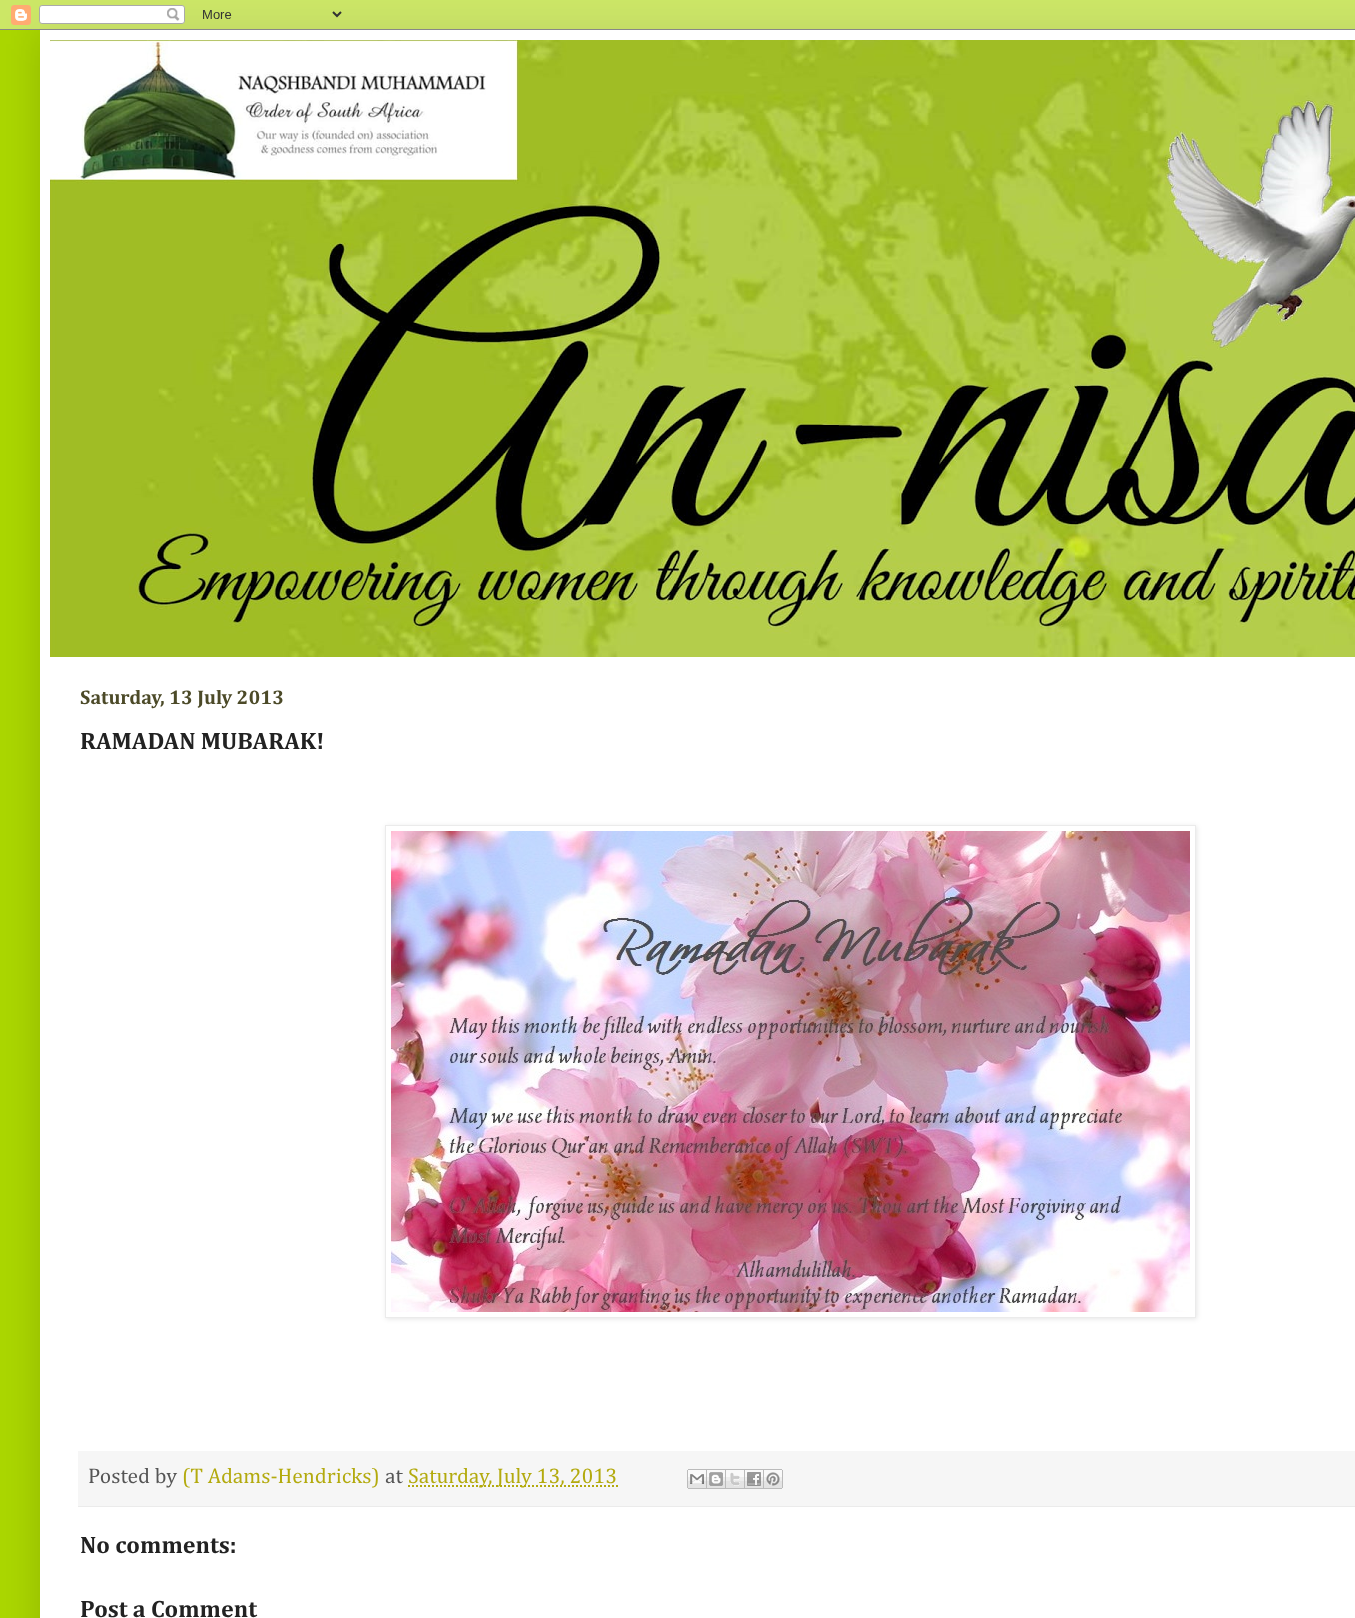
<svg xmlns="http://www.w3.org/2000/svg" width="1355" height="1618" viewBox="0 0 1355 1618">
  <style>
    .t1 { font: bold 20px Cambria; fill: #4c4a28; }
    .t2 { font: bold 24px Cambria; fill: #222; }
    .t3 { font: 21.5px Cambria; fill: #555; }
    .t4 { font: 21.5px Cambria; fill: #b3aa0e; }
  </style>
  <defs>
    <clipPath id="clip1"><path d="M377 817H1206V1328H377ZM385 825H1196V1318H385Z" clip-rule="evenodd"/></clipPath>
  </defs>
  <rect width="100%" height="100%" fill="#abd700"/>
  <rect x="40" y="30" width="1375" height="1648" fill="#00000026" filter="blur(20px)"/>
  <image x="0" y="0" width="1355" height="30" href="images/1.png"/>
  <rect x="40" y="30" width="1315" height="1588" fill="#fff"/>
  <image x="50" y="40" width="1305" height="617" href="images/2.png"/>
  <text x="80" y="704" class="t1">Saturday, 13 July 2013</text>
  <text x="80" y="749" class="t2">RAMADAN MUBARAK!</text>
  <g clip-path="url(#clip1)">
    <rect x="386" y="826" width="811" height="493" fill="#0000001a" filter="blur(2.5px)"/>
  </g>
  <rect x="385.5" y="825.5" width="810" height="492" fill="none" stroke="#ebebeb"/>
  <image x="391" y="831" width="799" height="481" href="images/3.png"/>
  <rect x="78" y="1451" width="1277" height="55" fill="#f6f6f6"/>
  <rect x="78" y="1506" width="1277" height="1" fill="#ebebeb"/>
  <text x="88" y="1483" class="t3">Posted by</text>
  <text x="182" y="1483" class="t4">(T Adams-Hendricks)</text>
  <text x="385" y="1483" class="t3">at</text>
  <path d="M408 1486H618" fill="none" stroke="#b3aa0e" stroke-width="2" stroke-dasharray="2 2"/>
  <text x="408" y="1483" class="t4">Saturday, July 13, 2013</text>
  <image x="687" y="1469" width="20" height="20" href="images/4.png"/>
  <image x="707" y="1469" width="19" height="20" href="images/5.png"/>
  <image x="726" y="1469" width="19" height="20" href="images/6.png"/>
  <image x="745" y="1469" width="19" height="20" href="images/7.png"/>
  <image x="764" y="1469" width="19" height="20" href="images/8.png"/>
  <text x="80" y="1553" class="t2">No comments:</text>
  <text x="80" y="1617" class="t2">Post a Comment</text>
</svg>
